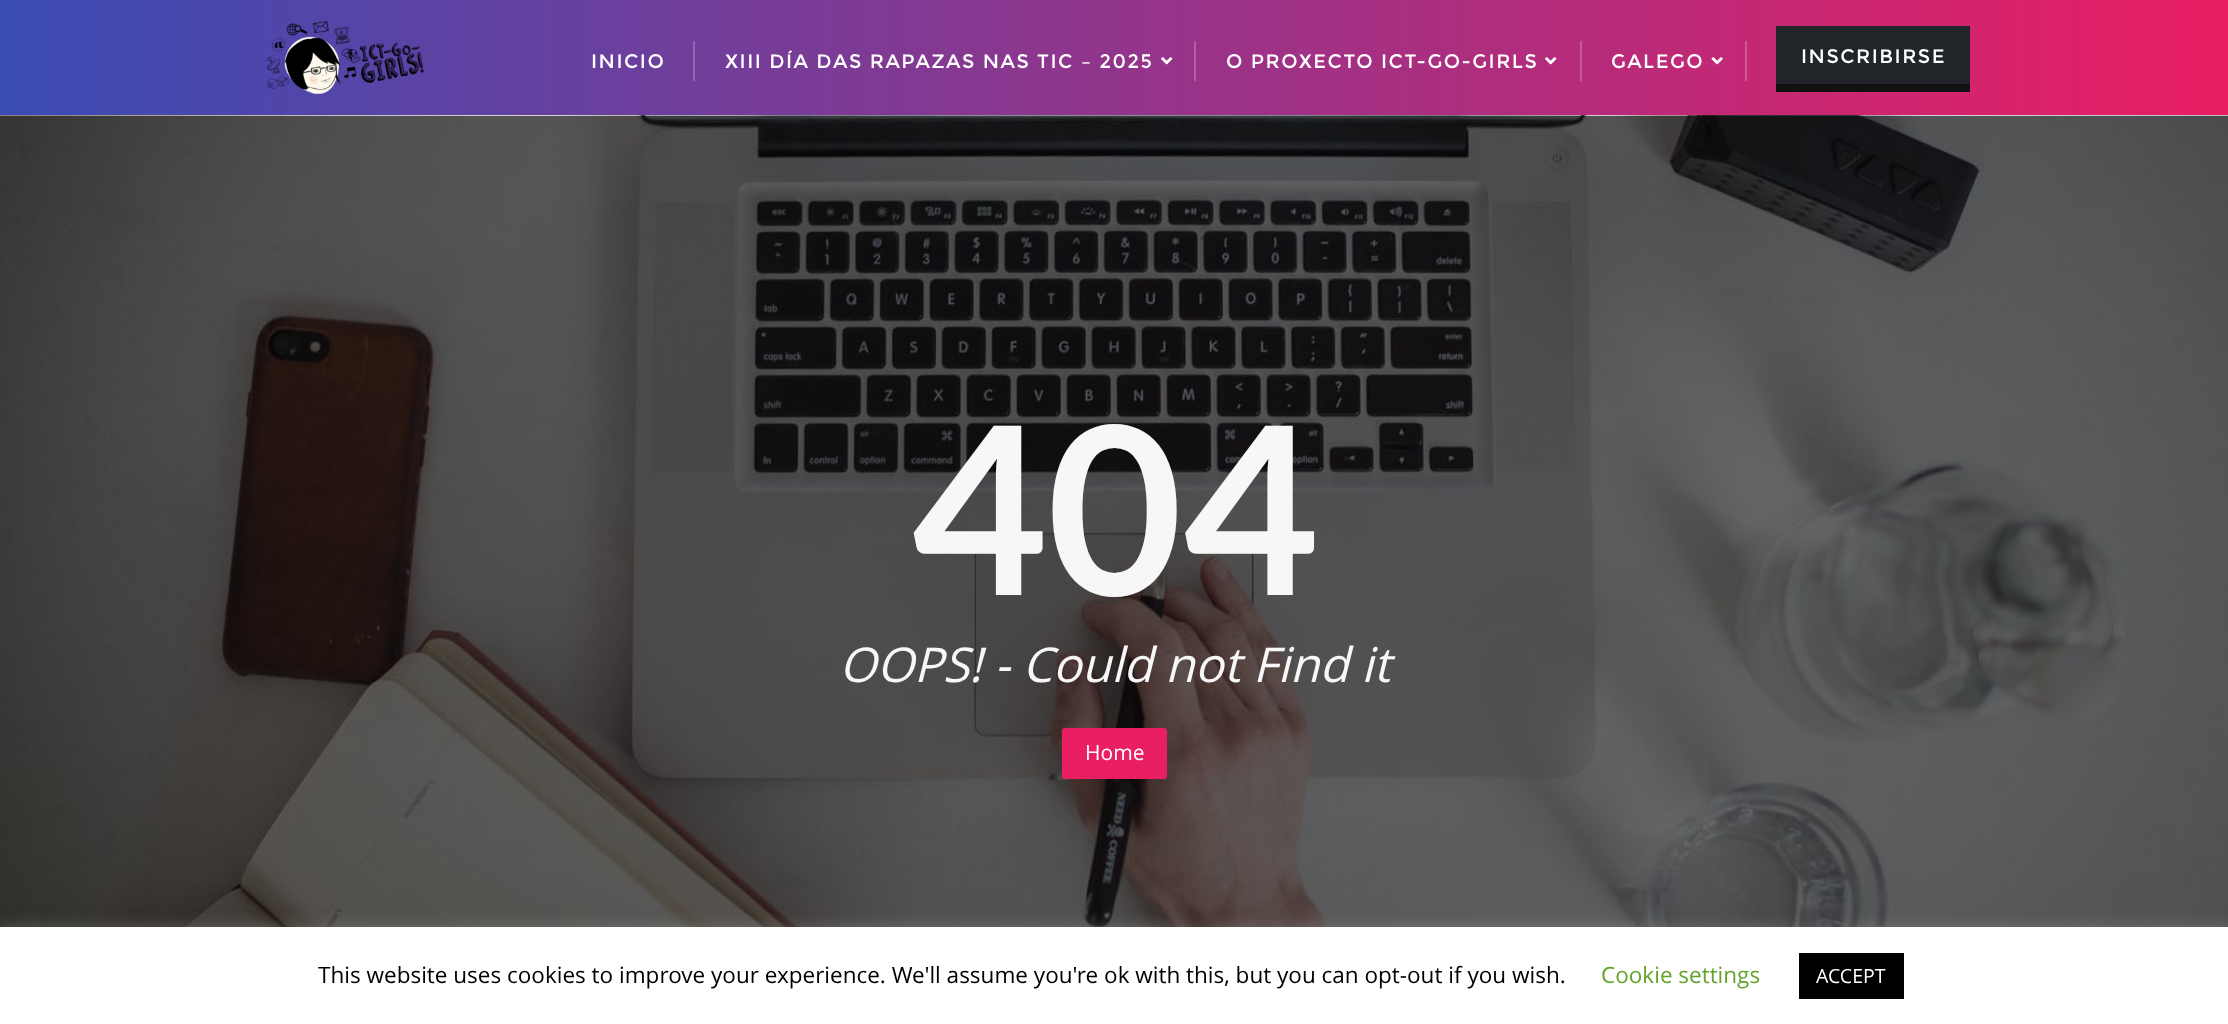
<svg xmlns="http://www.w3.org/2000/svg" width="2228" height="1024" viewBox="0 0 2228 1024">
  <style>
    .t1 { font: 19.5px Montserrat; letter-spacing: 1.5px; fill: #fff; }
    .t2 { font: bold 234px Lato; fill: #f7f7f7; }
    .t3 { font: italic 48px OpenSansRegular; fill: #f7f7f7; }
    .t4 { font: 21px OpenSansRegular; fill: #fff; }
    .t5 { font: 22.5px OpenSansRegular; fill: #000; }
    .t6 { font: 22.5px OpenSansRegular; fill: #62a329; }
    .t7 { font: 19.5px OpenSansRegular; fill: #fff; }
  </style>
  <defs>
    <linearGradient id="g1" gradientUnits="userSpaceOnUse" x1="0" y1="58" x2="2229" y2="58"><stop offset="0" stop-color="#3a4cb4"/><stop offset="1" stop-color="#e91e63"/></linearGradient>
  </defs>
  <rect width="100%" height="100%" fill="#fff"/>
  <rect x="0" y="0" width="2228" height="115" fill="url(#g1)"/>
  <image x="266" y="21" width="158" height="74" href="images/1.png"/>
  <text x="591" y="68" class="t1">INICIO</text>
  <rect x="693" y="41" width="2" height="40" fill="#9068b1"/>
  <text x="725" y="68" class="t1">XIII DÍA DAS RAPAZAS NAS TIC – 2025</text>
  <image x="1161" y="57" width="12" height="8" href="images/2.png"/>
  <rect x="1194" y="41" width="2" height="40" fill="#af60a3"/>
  <text x="1226" y="68" class="t1">O PROXECTO ICT-GO-GIRLS</text>
  <image x="1545" y="57" width="12" height="8" href="images/3.png"/>
  <rect x="1580" y="41" width="2" height="40" fill="#c65a98"/>
  <text x="1611" y="68" class="t1">GALEGO</text>
  <image x="1711" y="57" width="12" height="8" href="images/4.png"/>
  <rect x="1745" y="41" width="2" height="40" fill="#d05793"/>
  <rect x="1776" y="26" width="194" height="58" fill="#212529"/>
  <rect x="1776" y="84" width="194" height="8" fill="#121212"/>
  <text x="1801" y="63" class="t1">INSCRIBIRSE</text>
  <image x="0" y="115" width="2228" height="812" href="images/5.png"/>
  <text x="911" y="595" class="t2">404</text>
  <text x="839" y="682" class="t3">OOPS! - Could not Find it</text>
  <rect x="1062" y="728" width="105" height="51" rx="3" fill="#e91e63"/>
  <text x="1085" y="760" class="t4">Home</text>
  <rect x="0" y="926" width="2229" height="97" fill="#acabab4d" filter="blur(7.5px)"/>
  <rect x="0" y="927" width="2228" height="97" fill="#fff"/>
  <text x="318" y="983" class="t5">This website uses cookies to improve your experience. We'll assume you're ok with this, but you can opt-out if you wish.</text>
  <text x="1601" y="983" class="t6">Cookie settings</text>
  <rect x="1799" y="953" width="105" height="46" fill="#000"/>
  <text x="1816" y="983" class="t7">ACCEPT</text>
</svg>
